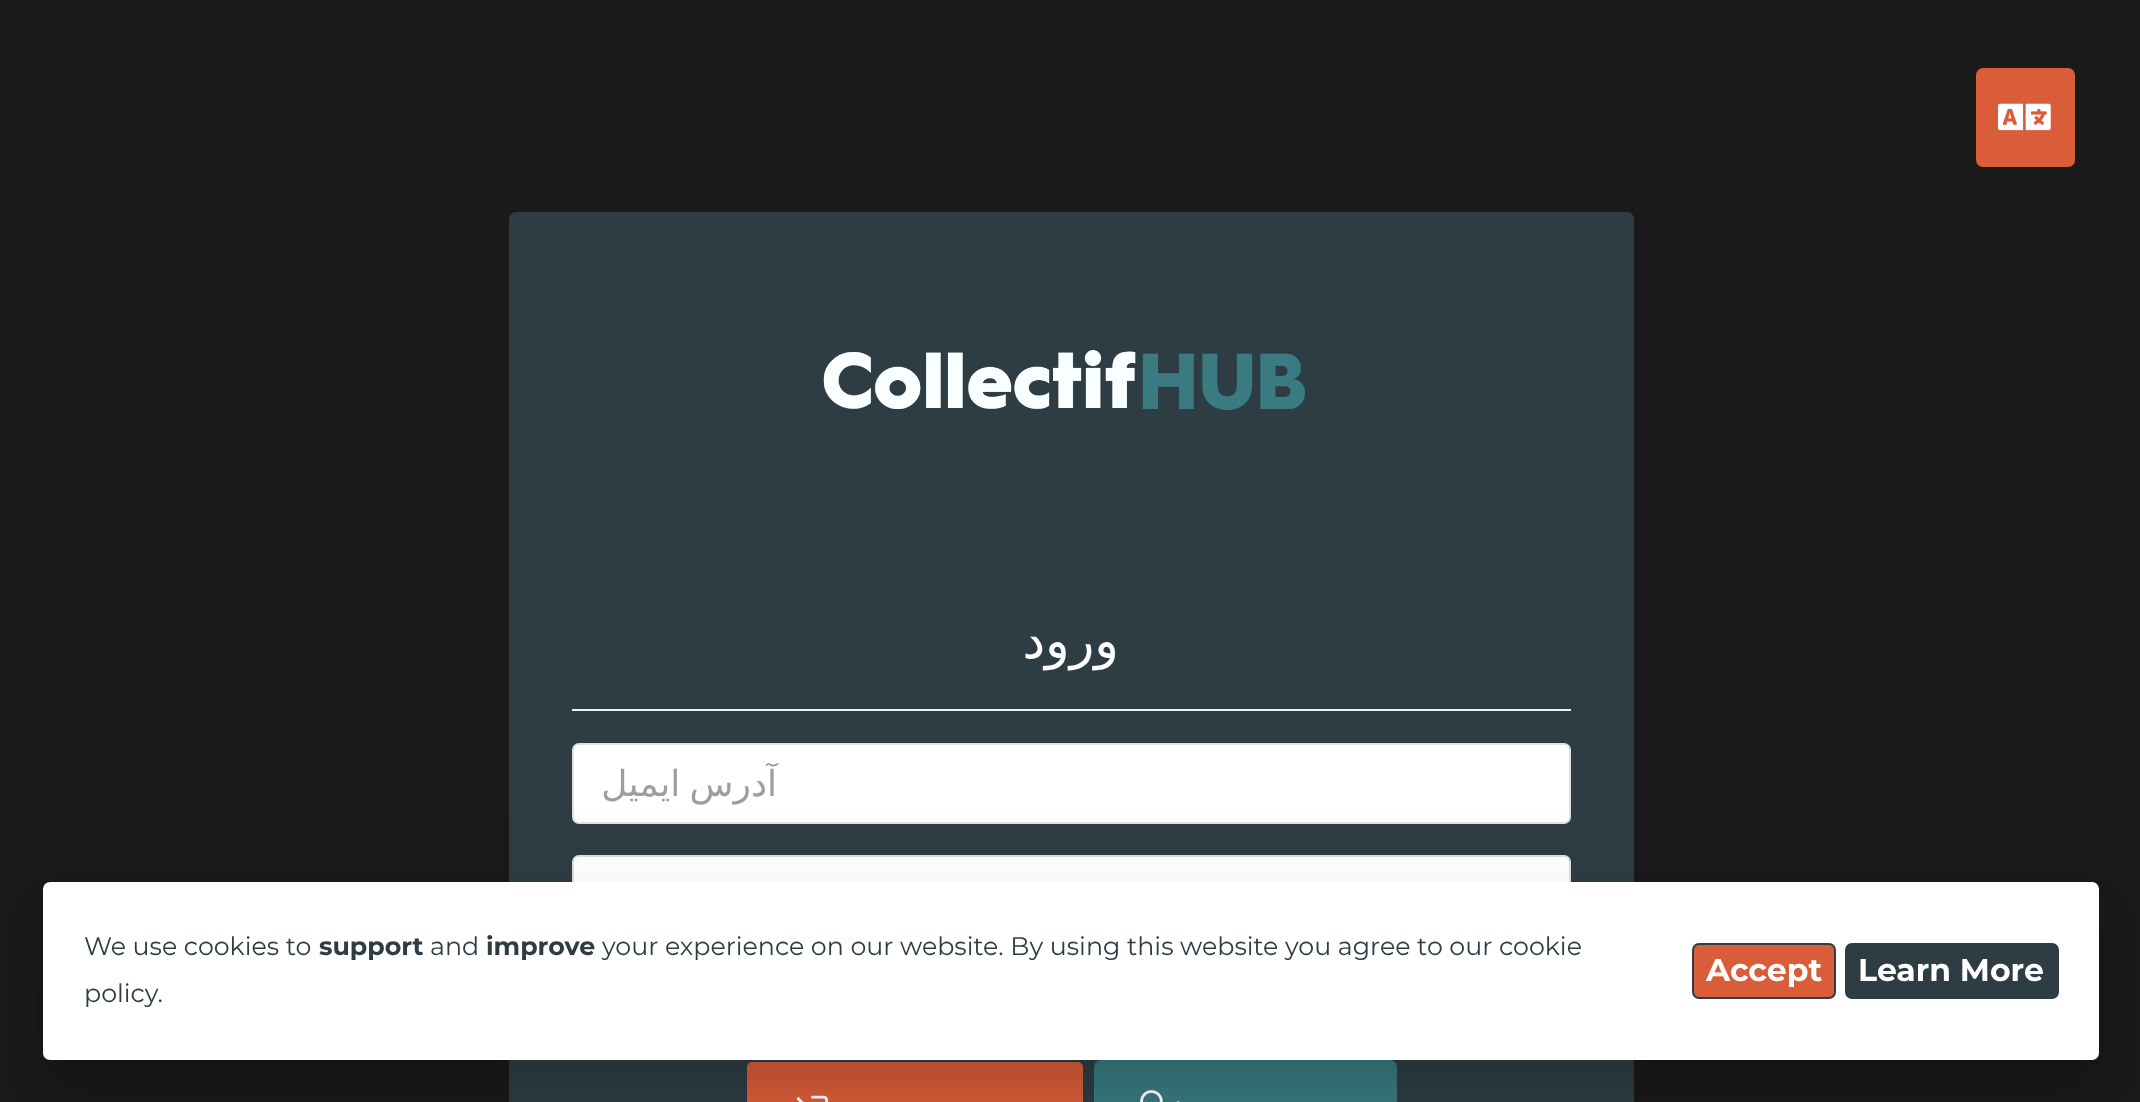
<svg xmlns="http://www.w3.org/2000/svg" width="2140" height="1102" viewBox="0 0 2140 1102">
  <style>
    .t1 { font: 51px DejaVu Sans; direction: rtl; fill: #fff; }
    .t2 { font: 36px DejaVu Sans; direction: rtl; fill: #9e9e9e; }
    .t3 { font: 25.3px Montserrat; fill: #2e3d44; }
    .t4 { font: bold 25.3px Montserrat; fill: #2e3d44; }
    .t5 { font: bold 31.5px Montserrat; fill: #fff; }
  </style>
  <defs>
    <clipPath id="clip1"><rect x="601" y="763" width="940" height="43"/></clipPath>
  </defs>
  <rect width="100%" height="100%" fill="#1a1a1a"/>
  <rect x="1976" y="68" width="99" height="99" rx="7" fill="#d95d39"/>
  <image x="1998" y="103" width="53" height="28" href="images/1.png"/>
  <rect x="509" y="212" width="1125" height="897" rx="7" fill="#2e3d44"/>
  <image x="823" y="350" width="482" height="60" href="images/2.png"/>
  <rect x="572" y="709" width="999" height="2" fill="#eee"/>
  <text x="1119" y="658" class="t1">ورود</text>
  <rect x="573" y="744" width="997" height="79" rx="6" fill="#fff" stroke="#e0e0e0" stroke-width="2"/>
  <g clip-path="url(#clip1)">
    <text x="777" y="796" word-spacing="-2" class="t2">آدرس ایمیل</text>
  </g>
  <rect x="573" y="856" width="997" height="79" rx="6" fill="#fff" stroke="#e0e0e0" stroke-width="2"/>
  <rect x="746" y="1061" width="338" height="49" rx="6" fill="#d95d39" stroke="#2e3d44" stroke-width="2"/>
  <image x="796" y="1095" width="32" height="7" href="images/3.png"/>
  <rect x="1095" y="1061" width="301" height="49" rx="6" fill="#397b81" stroke="#397b81" stroke-width="2"/>
  <image x="1140" y="1090" width="40" height="12" href="images/4.png"/>
  <rect x="43" y="909" width="2056" height="178" rx="7" fill="#0000001a" filter="blur(17px)"/>
  <rect x="43" y="920" width="2056" height="178" rx="7" fill="#0000001a" filter="blur(56px)"/>
  <rect x="43" y="882" width="2056" height="178" rx="7" fill="#fff"/>
  <text x="84" y="955" class="t3">We use cookies to</text>
  <text x="319" y="955" class="t4">support</text>
  <text x="430" y="955" class="t3">and</text>
  <text x="486" y="955" class="t4">improve</text>
  <text x="602" y="955" class="t3">your experience on our website. By using this website you agree to our cookie</text>
  <text x="84" y="1002" class="t3">policy.</text>
  <rect x="1693" y="944" width="142" height="54" rx="6" fill="#d95d39" stroke="#2e3d44" stroke-width="2"/>
  <text x="1706" y="981" class="t5">Accept</text>
  <rect x="1846" y="944" width="212" height="54" rx="6" fill="#2e3d44" stroke="#2e3d44" stroke-width="2"/>
  <text x="1858" y="981" class="t5">Learn More</text>
</svg>
